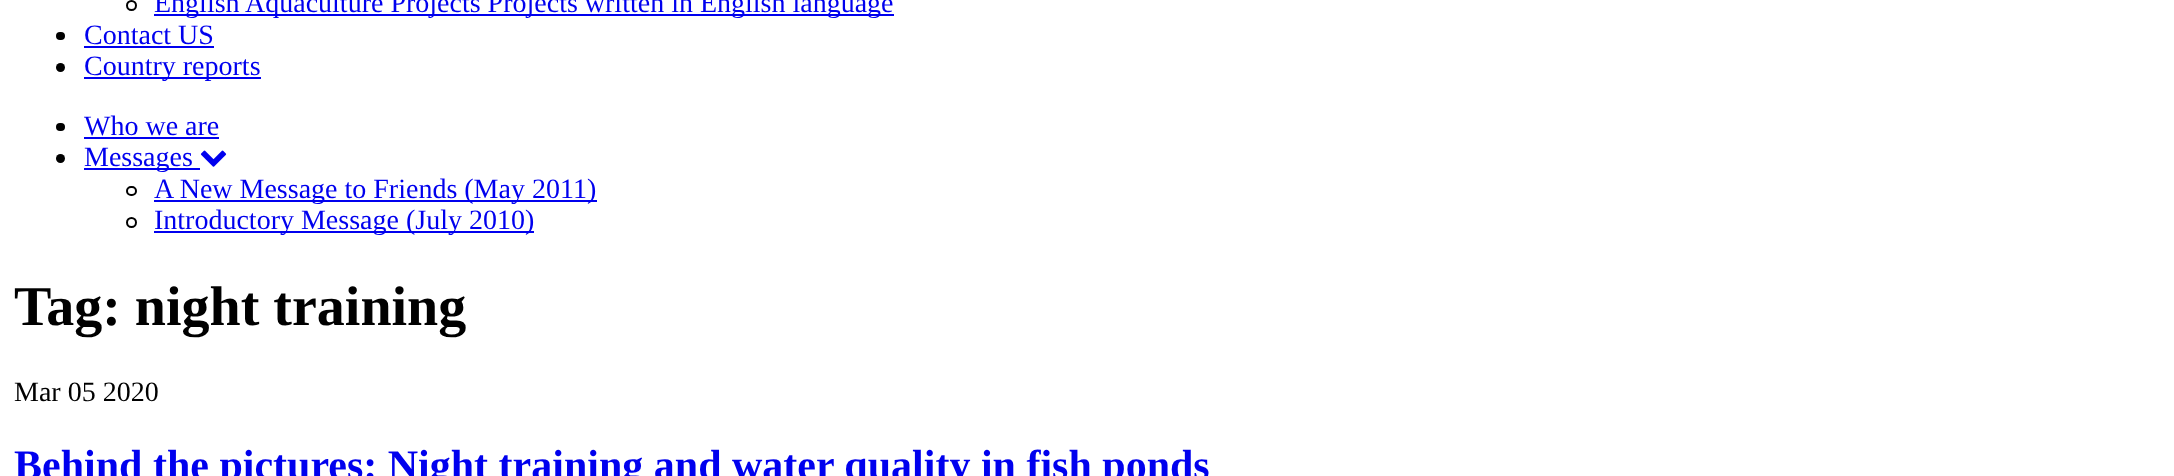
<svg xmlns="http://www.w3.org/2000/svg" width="2174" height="476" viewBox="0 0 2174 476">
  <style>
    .t1 { font: 28px Liberation Serif; fill: #00e; }
    .t2 { font: bold 56px Liberation Serif; fill: #000; }
    .t3 { font: 28px Liberation Serif; fill: #000; }
    .t4 { font: bold 42px Liberation Serif; fill: #00e; }
  </style>
  <rect width="100%" height="100%" fill="#fff"/>
  <circle cx="131.5" cy="5.5" r="4.5" fill="none" stroke="#000" stroke-width="2"/>
  <rect x="154" y="14" width="740" height="2" fill="#00e"/>
  <text x="154" y="12" class="t1">English Aquaculture Projects Projects written in English language</text>
  <rect x="56" y="32" width="9" height="8" rx="4" fill="#000"/>
  <text x="84" y="44" class="t1">Contact US</text>
  <rect x="84" y="46" width="130" height="2" fill="#00e"/>
  <circle cx="60.5" cy="67.5" r="4.5" fill="#000"/>
  <rect x="84" y="77" width="177" height="2" fill="#00e"/>
  <text x="84" y="75" class="t1">Country reports</text>
  <rect x="56" y="123" width="9" height="8" rx="4" fill="#000"/>
  <text x="84" y="135" class="t1">Who we are</text>
  <rect x="84" y="137" width="135" height="2" fill="#00e"/>
  <circle cx="60.5" cy="158.5" r="4.5" fill="#000"/>
  <rect x="84" y="168" width="116" height="2" fill="#00e"/>
  <text x="84" y="166" class="t1">Messages</text>
  <image x="200" y="150" width="27" height="17" href="images/1.png"/>
  <rect x="127" y="187" width="9" height="8" rx="4" fill="none" stroke="#000" stroke-width="2"/>
  <rect x="154" y="200" width="443" height="2" fill="#00e"/>
  <text x="154" y="198" class="t1">A New Message to Friends (May 2011)</text>
  <circle cx="131.5" cy="222.5" r="4.5" fill="none" stroke="#000" stroke-width="2"/>
  <rect x="154" y="231" width="380" height="2" fill="#00e"/>
  <text x="154" y="229" class="t1">Introductory Message (July 2010)</text>
  <text x="14" y="325" class="t2">Tag: night training</text>
  <text x="14" y="401" class="t3">Mar 05 2020</text>
  <text x="14" y="479" class="t4">Behind the pictures: Night training and water quality in fish ponds</text>
</svg>
